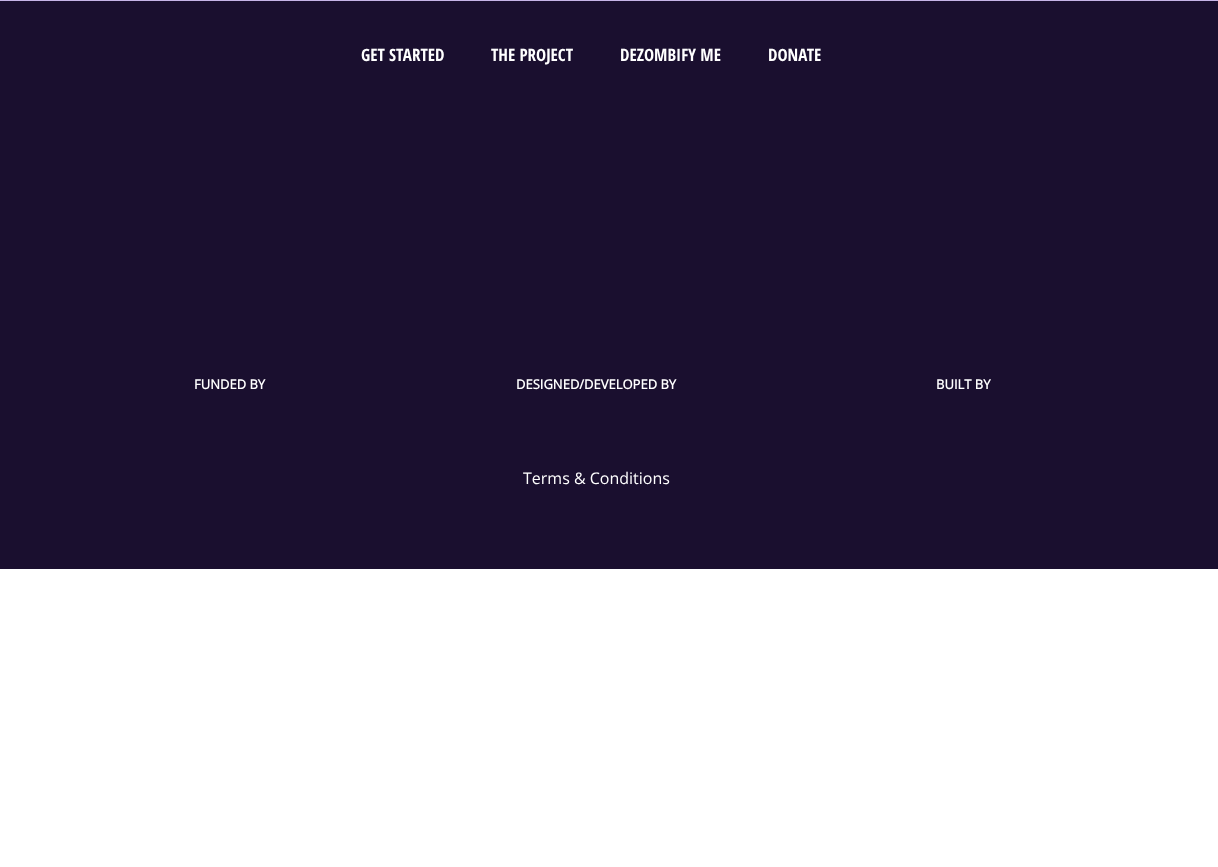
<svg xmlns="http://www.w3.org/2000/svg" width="1218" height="867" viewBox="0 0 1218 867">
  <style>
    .t1 { font: bold 17px Open Sans Condensed; fill: #fff; }
    .t2 { font: bold 13px Open Sans; fill: #fff; }
    .t3 { font: 16px Open Sans; fill: #fff; }
  </style>
  <rect width="100%" height="100%" fill="#fff"/>
  <rect x="0" y="1" width="1218" height="568" fill="#1a0f2f"/>
  <rect x="0" y="0" width="1218" height="1" fill="#c7b5e8"/>
  <text x="361" y="61" class="t1">GET STARTED</text>
  <text x="491" y="61" class="t1">THE PROJECT</text>
  <text x="620" y="61" class="t1">DEZOMBIFY ME</text>
  <text x="768" y="61" class="t1">DONATE</text>
  <text x="194" y="389" class="t2">FUNDED BY</text>
  <text x="516" y="389" class="t2">DESIGNED/DEVELOPED BY</text>
  <text x="523" y="484" class="t3">Terms &amp; Conditions</text>
  <text x="936" y="389" class="t2">BUILT BY</text>
</svg>
